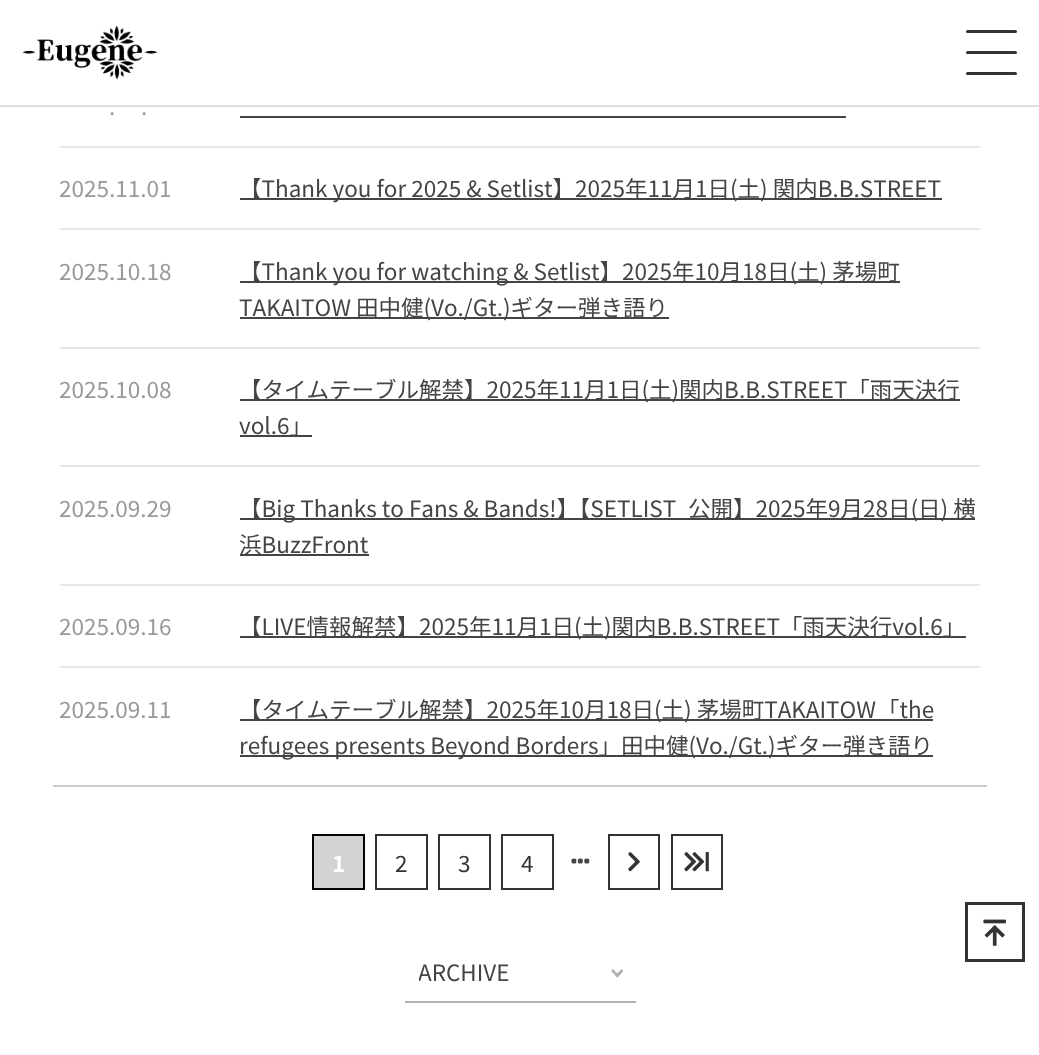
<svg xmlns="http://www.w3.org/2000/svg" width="1039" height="1055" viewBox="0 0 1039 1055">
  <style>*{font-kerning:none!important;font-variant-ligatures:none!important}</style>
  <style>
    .t1 { font: 22.5px Noto Sans JP; fill: #999; }
    .t2 { font: 22.5px Noto Sans JP; fill: #444; }
    .t3 { font: bold 22.5px Noto Sans JP; fill: #fff; }
    .t4 { font: 22.5px Noto Sans JP; fill: #333; }
  </style>
  <defs>
    <clipPath id="clip1"><rect x="419" y="954" width="159" height="36"/></clipPath>
  </defs>
  <rect width="100%" height="100%" fill="#fff"/>
  <rect x="0" y="105" width="1039" height="2" fill="#ddd"/>
  <image x="22" y="25" width="136" height="55" href="images/1.png"/>
  <rect x="966" y="30" width="51" height="3" rx="1.5" fill="#333"/>
  <rect x="966" y="51" width="51" height="3" rx="1.5" fill="#333"/>
  <rect x="966" y="72" width="51" height="3" rx="1.5" fill="#333"/>
  <rect x="53" y="785" width="934" height="2" fill="#ccc"/>
  <rect x="60" y="146" width="920" height="2" fill="#e6e6e6"/>
  <text x="109" y="115" class="t1">.</text>
  <text x="141" y="115" class="t1">.</text>
  <rect x="240" y="116" width="606" height="2" fill="#444"/>
  <rect x="60" y="228" width="920" height="2" fill="#e6e6e6"/>
  <text x="59" y="197" class="t1">2025.11.01</text>
  <rect x="240" y="198" width="702" height="2" fill="#444"/>
  <text x="239" y="197" class="t2">【Thank you for 2025 &amp; Setlist】2025年11月1日(土) 関内B.B.STREET</text>
  <rect x="60" y="347" width="920" height="2" fill="#e6e6e6"/>
  <text x="59" y="280" class="t1">2025.10.18</text>
  <rect x="240" y="281" width="660" height="2" fill="#444"/>
  <text x="239" y="280" class="t2">【Thank you for watching &amp; Setlist】2025年10月18日(土) 茅場町</text>
  <rect x="240" y="317" width="429" height="2" fill="#444"/>
  <text x="239" y="316" class="t2">TAKAITOW 田中健(Vo./Gt.)ギター弾き語り</text>
  <rect x="60" y="465" width="920" height="2" fill="#e6e6e6"/>
  <text x="59" y="398" class="t1">2025.10.08</text>
  <rect x="240" y="399" width="720" height="2" fill="#444"/>
  <text x="239" y="398" class="t2">【タイムテーブル解禁】2025年11月1日(土)関内B.B.STREET「雨天決行</text>
  <rect x="240" y="435" width="72" height="2" fill="#444"/>
  <text x="239" y="434" class="t2">vol.6」</text>
  <rect x="60" y="584" width="920" height="2" fill="#e6e6e6"/>
  <text x="59" y="517" class="t1">2025.09.29</text>
  <rect x="240" y="518" width="735" height="2" fill="#444"/>
  <text x="239" y="517" class="t2">【Big Thanks to Fans &amp; Bands!】【SETLIST</text>
  <text x="688" y="517" class="t2">公開】2025年9月28日(日) 横</text>
  <rect x="240" y="554" width="129" height="2" fill="#444"/>
  <text x="239" y="553" class="t2">浜BuzzFront</text>
  <rect x="60" y="666" width="920" height="2" fill="#e6e6e6"/>
  <text x="59" y="635" class="t1">2025.09.16</text>
  <rect x="240" y="636" width="726" height="2" fill="#444"/>
  <text x="239" y="635" class="t2">【LIVE情報解禁】2025年11月1日(土)関内B.B.STREET「雨天決行vol.6」</text>
  <text x="59" y="718" class="t1">2025.09.11</text>
  <rect x="240" y="719" width="693" height="2" fill="#444"/>
  <text x="239" y="718" class="t2">【タイムテーブル解禁】2025年10月18日(土) 茅場町TAKAITOW</text>
  <text x="877" y="718" class="t2">「the</text>
  <rect x="240" y="755" width="693" height="2" fill="#444"/>
  <text x="239" y="754" class="t2">refugees presents Beyond Borders」田中健(Vo./Gt.)ギター弾き語り</text>
  <rect x="313" y="835" width="51" height="54" fill="#d3d3d3" stroke="#000" stroke-width="2"/>
  <text x="332" y="872" class="t3">1</text>
  <rect x="376" y="835" width="51" height="54" fill="none" stroke="#333" stroke-width="2"/>
  <text x="395" y="872" class="t4">2</text>
  <rect x="439" y="835" width="51" height="54" fill="none" stroke="#333" stroke-width="2"/>
  <text x="458" y="872" class="t4">3</text>
  <rect x="502" y="835" width="51" height="54" fill="none" stroke="#333" stroke-width="2"/>
  <text x="521" y="872" class="t4">4</text>
  <image x="571" y="858" width="19" height="6" href="images/2.png"/>
  <rect x="609" y="835" width="50" height="54" fill="none" stroke="#333" stroke-width="2"/>
  <image x="628" y="852" width="12" height="20" href="images/3.png"/>
  <rect x="672" y="835" width="50" height="54" fill="none" stroke="#333" stroke-width="2"/>
  <image x="684" y="852" width="25" height="20" href="images/4.png"/>
  <rect x="405" y="1001" width="231" height="2" fill="#b4b3b3"/>
  <g clip-path="url(#clip1)">
    <text x="418" y="981" class="t2">ARCHIVE</text>
  </g>
  <path d="M621.5 969L623.5 971L617.5 977.5L615 975.5Z" fill="#b4b3b3"/>
  <path d="M613 969L619.5 975.5L617.5 977.5L611 971Z" fill="#b4b3b3"/>
  <rect x="966.5" y="903.5" width="57" height="57" fill="none" stroke="#333" stroke-width="3"/>
  <image x="983" y="919" width="23" height="27" href="images/5.png"/>
</svg>
